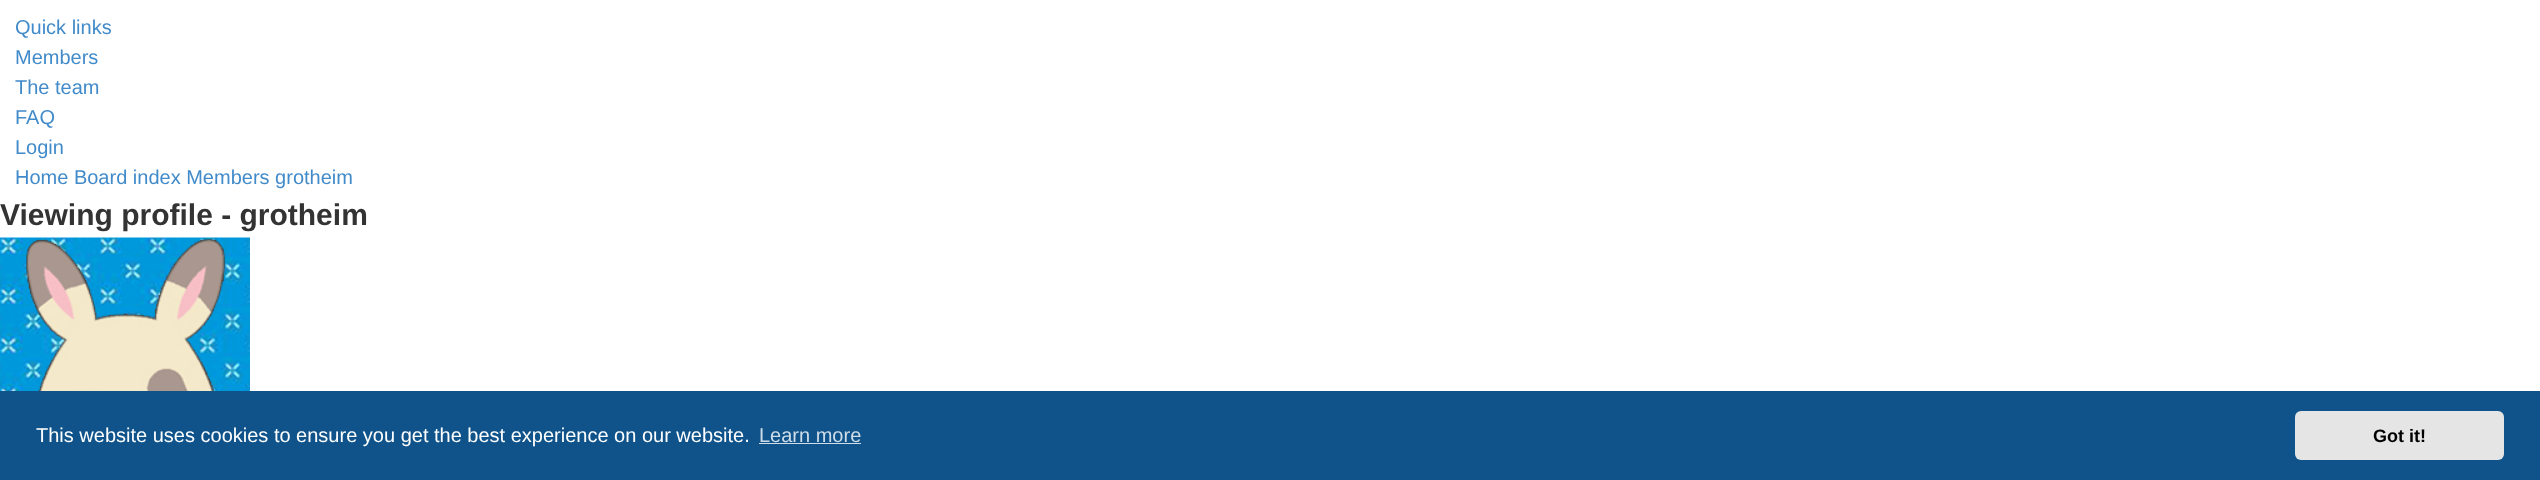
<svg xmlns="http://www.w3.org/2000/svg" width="2540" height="480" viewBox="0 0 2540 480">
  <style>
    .t1 { font: 20px Liberation Sans; fill: #428bca; }
    .t2 { font: bold 30px Liberation Sans; fill: #333; }
    .t3 { font: 20px Liberation Sans; fill: #fff; }
    .t4 { font: 20px Liberation Sans; fill: #cfdde8; }
    .t5 { font: bold 18px Liberation Sans; fill: #000; }
  </style>
  <rect width="100%" height="100%" fill="#fff"/>
  <text x="15" y="34" class="t1">Quick links</text>
  <text x="15" y="64" class="t1">Members</text>
  <text x="15" y="94" class="t1">The team</text>
  <text x="15" y="124" class="t1">FAQ</text>
  <text x="15" y="154" class="t1">Login</text>
  <text x="15" y="184" class="t1">Home Board index Members grotheim</text>
  <text x="0" y="225" class="t2">Viewing profile - grotheim</text>
  <image x="0" y="237" width="250" height="154" href="images/1.png"/>
  <rect x="0" y="391" width="2540" height="89" fill="#0f538a"/>
  <text x="36" y="442" class="t3">This website uses cookies to ensure you get the best experience on our website.</text>
  <text x="759" y="442" class="t4">Learn more</text>
  <rect x="759" y="443" width="102" height="1" fill="#cfdde8"/>
  <rect x="2295" y="411" width="209" height="49" rx="6" fill="#e5e5e5"/>
  <text x="2373" y="442" class="t5">Got it!</text>
</svg>
